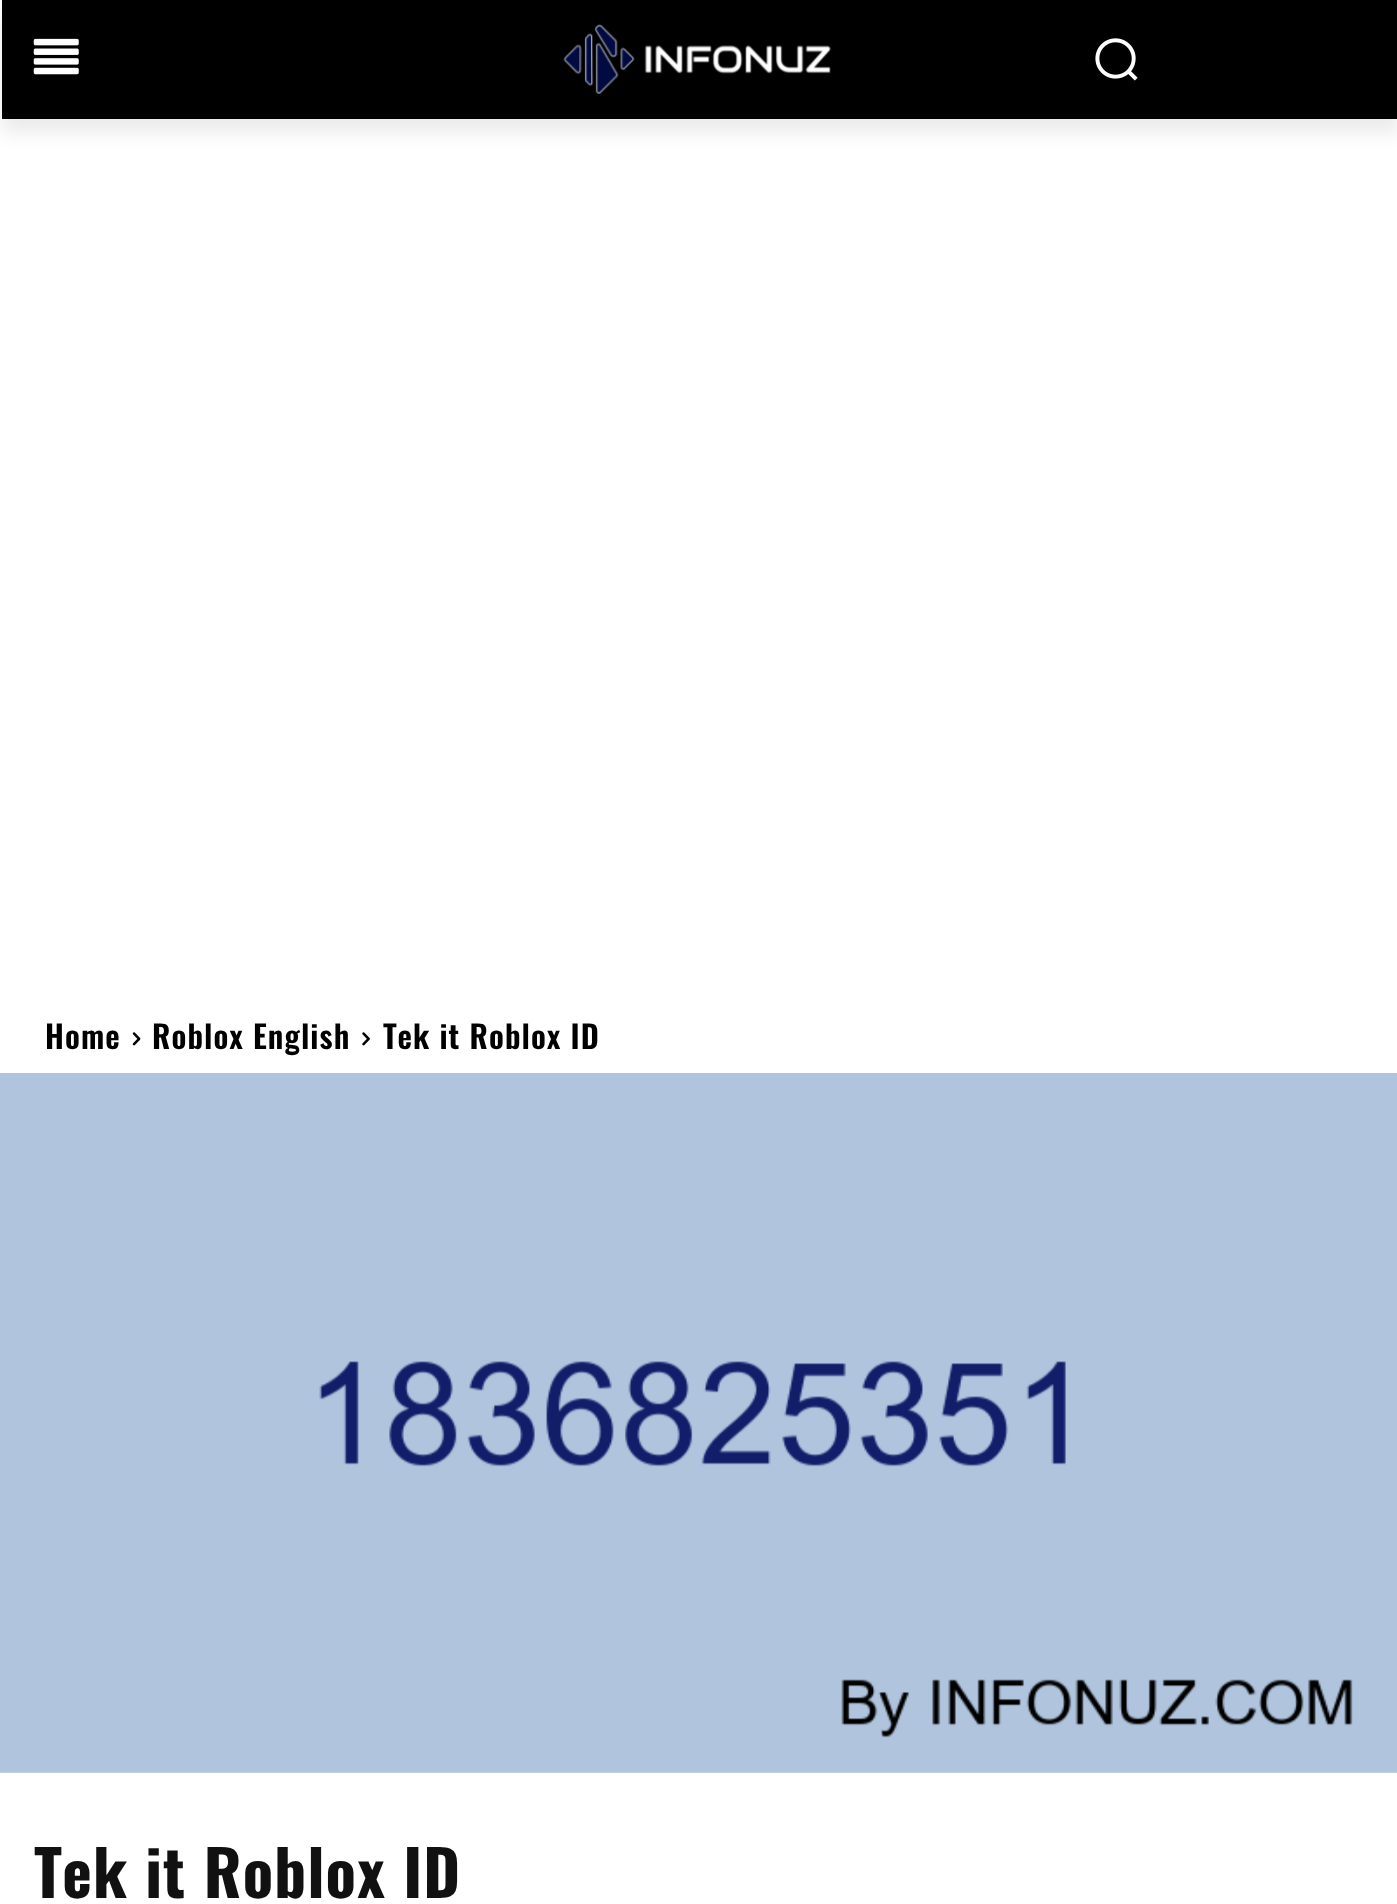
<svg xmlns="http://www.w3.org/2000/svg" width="1397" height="1904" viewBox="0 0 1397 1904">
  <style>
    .t1 { font: 600 31.5px Oswald; letter-spacing: 1.1px; fill: #000; }
    .t2 { font: bold 63px Oswald; letter-spacing: 1.1px; fill: #111; }
  </style>
  <defs>
    <clipPath id="clip1"><path d="M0 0H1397V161H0ZM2 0H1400V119H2Z" clip-rule="evenodd"/></clipPath>
  </defs>
  <rect width="100%" height="100%" fill="#fff"/>
  <rect x="2" y="0" width="1395" height="119" fill="#000"/>
  <image x="33" y="38" width="46" height="37" href="images/1.png"/>
  <image x="563" y="24" width="268" height="70" href="images/2.png"/>
  <image x="1095" y="38" width="43" height="43" href="images/3.png"/>
  <g clip-path="url(#clip1)">
    <rect x="2" y="14" width="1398" height="119" fill="#00000014" filter="blur(9px)"/>
  </g>
  <text x="45" y="1049" class="t1">Home</text>
  <image x="132" y="1032" width="9" height="14" href="images/4.png"/>
  <text x="152" y="1049" class="t1">Roblox English</text>
  <image x="362" y="1032" width="8" height="14" href="images/5.png"/>
  <text x="383" y="1049" class="t1">Tek it Roblox ID</text>
  <image x="0" y="1073" width="1397" height="700" href="images/6.png"/>
  <text x="34" y="1898" class="t2">Tek it Roblox ID</text>
</svg>
